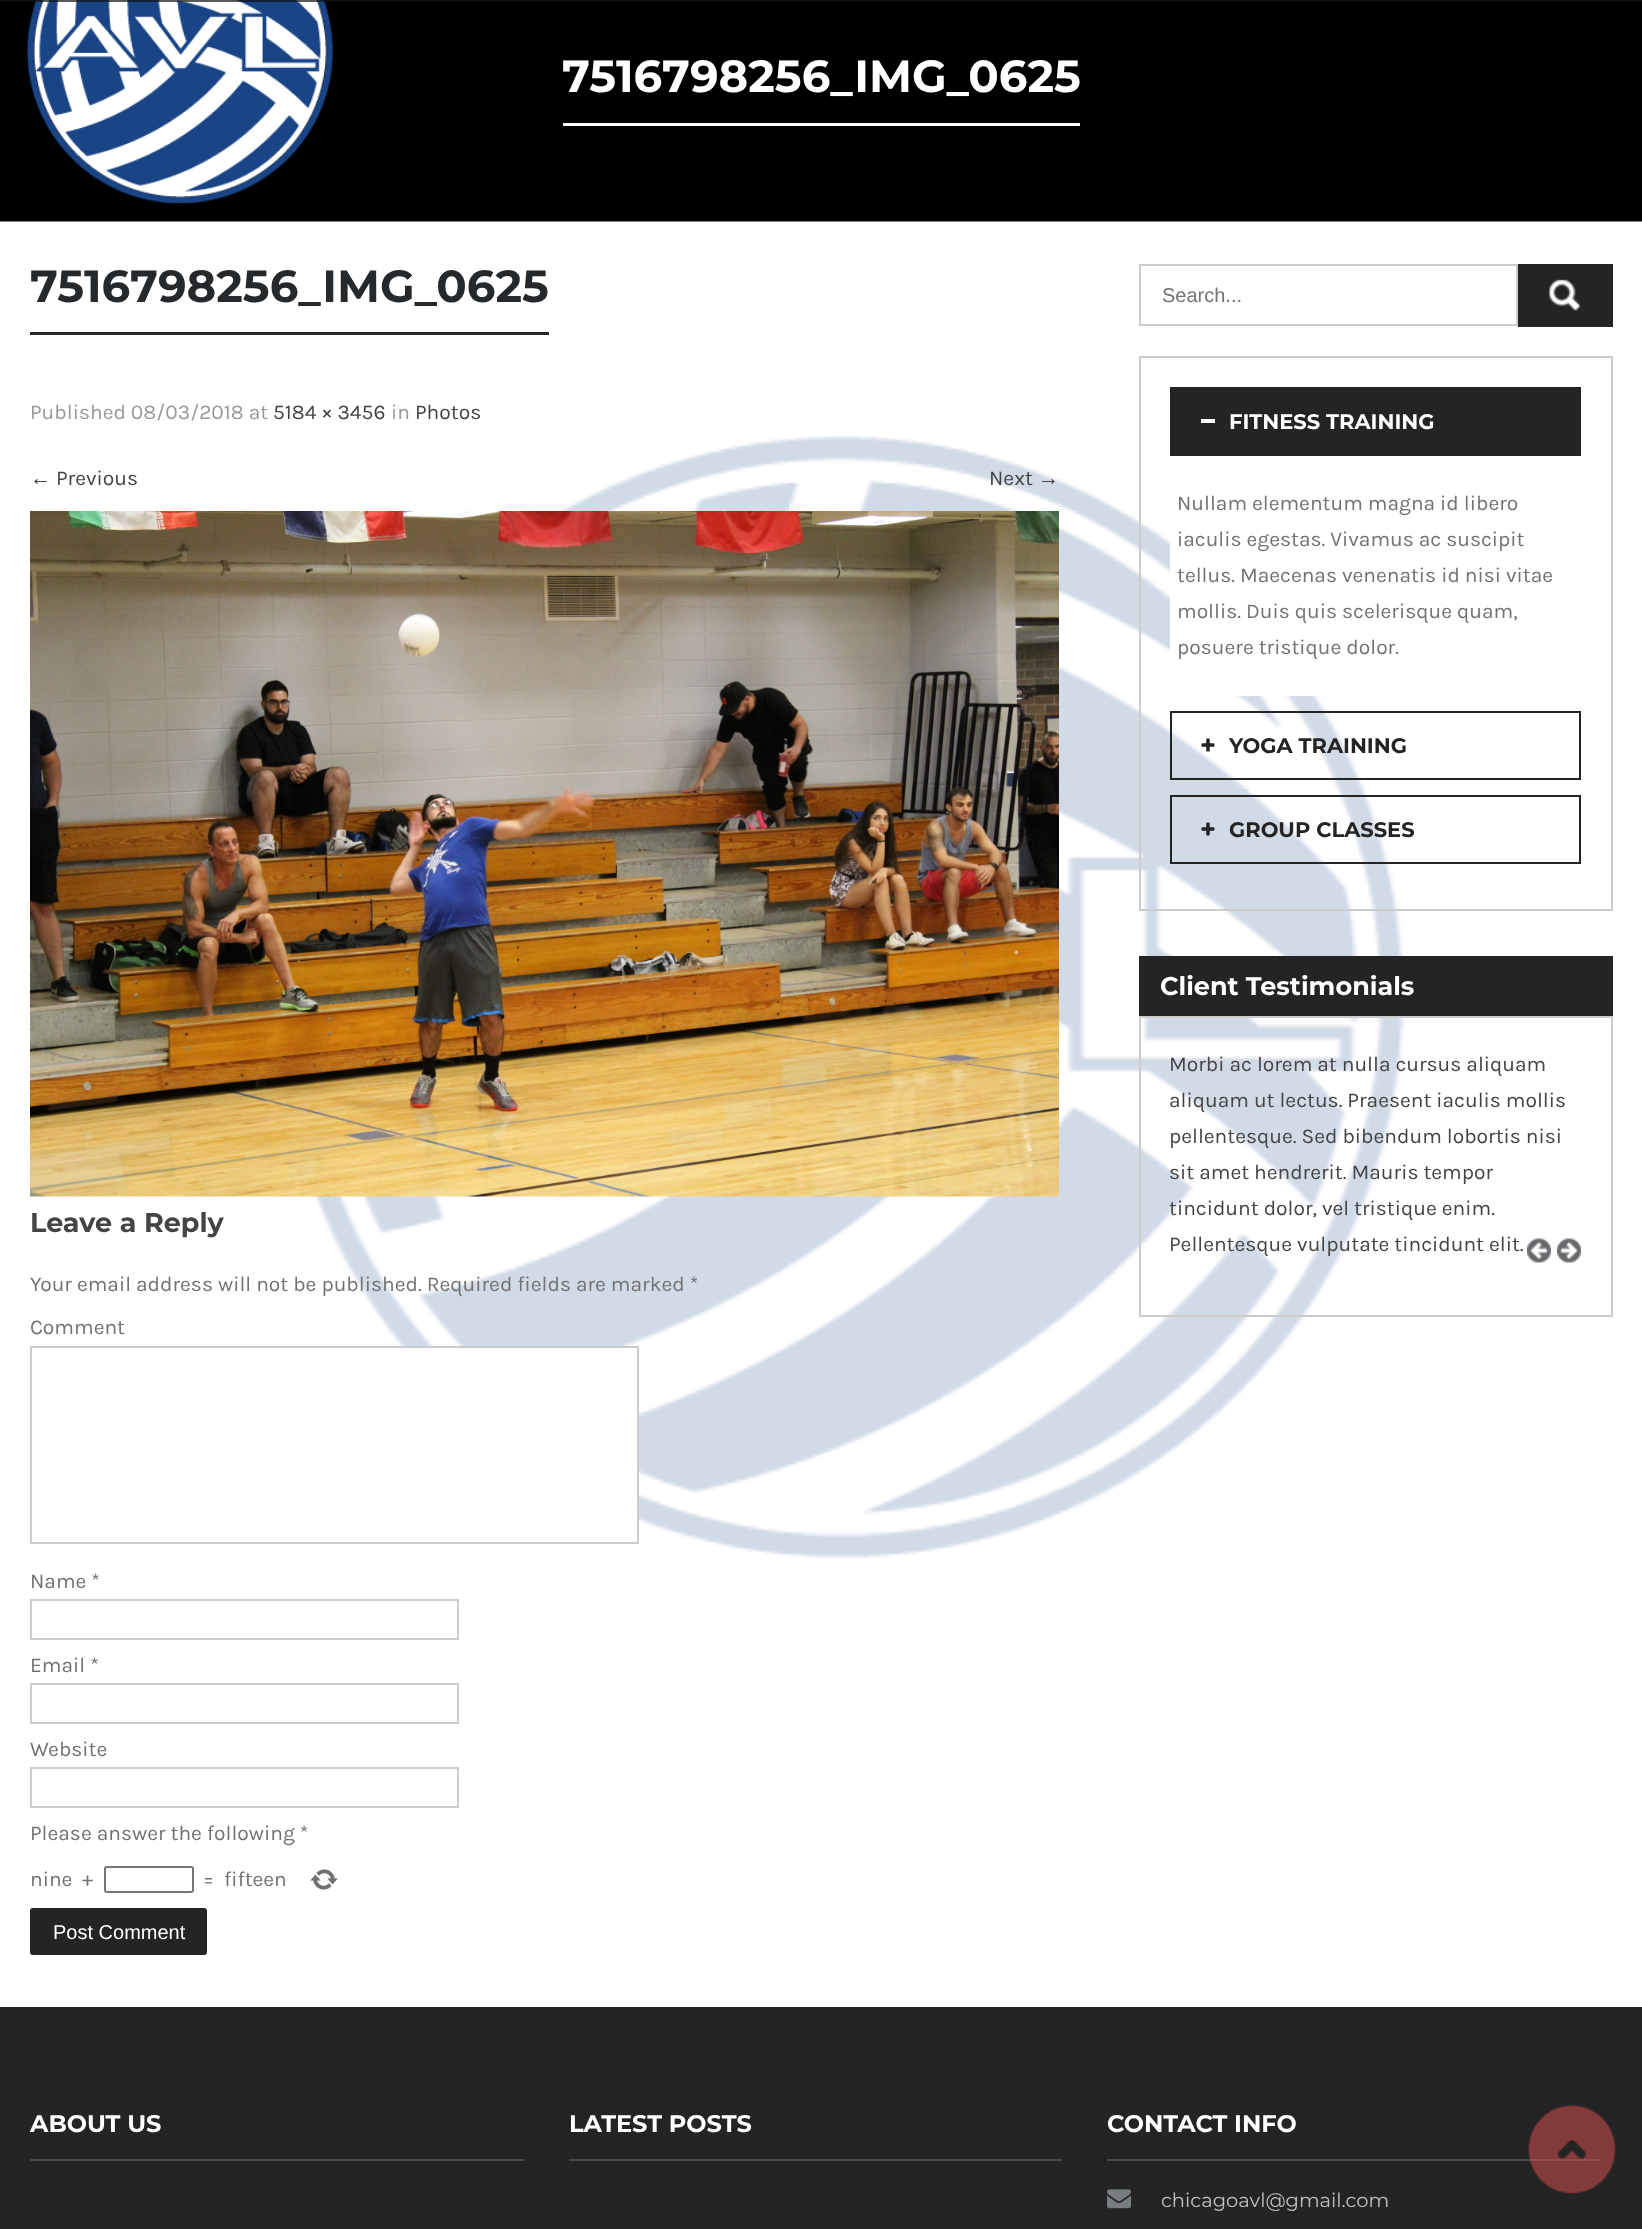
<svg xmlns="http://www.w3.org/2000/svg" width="1642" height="2229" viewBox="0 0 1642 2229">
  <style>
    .t1 { font: bold 45px Montserrat; fill: #fff; }
    .t2 { font: bold 45px Montserrat; fill: #25292c; }
    .t3 { font: 21px Karla; fill: #999; }
    .t4 { font: 21px Karla; fill: #444; }
    .t5 { font: 21px Liberation Serif; fill: #444; }
    .t6 { font: bold 27px Montserrat; fill: #444; }
    .t7 { font: 21px Karla; fill: #737272; }
    .t8 { font: 20px Liberation Sans; fill: #fff; }
    .t9 { font: 20px Liberation Sans; fill: #737272; }
    .t10 { font: bold 21px Montserrat; fill: #fff; }
    .t11 { font: bold 21px Montserrat; fill: #242424; }
    .t12 { font: bold 25.5px Montserrat; fill: #fff; }
    .t13 { font: bold 24px Montserrat; fill: #fff; }
    .t14 { font: 100 19.5px Montserrat; fill: #c1c0c0; }
  </style>
  <rect width="100%" height="100%" fill="#fff"/>
  <image x="315" y="436" width="1090" height="1122" href="images/1.png"/>
  <image x="0" y="0" width="1642" height="222" href="images/2.png"/>
  <rect x="0" y="0" width="1642" height="2" fill="#131313b3"/>
  <rect x="563" y="123" width="517" height="3" fill="#fff"/>
  <text x="562" y="92" class="t1">7516798256_IMG_0625</text>
  <rect x="30" y="332" width="519" height="3" fill="#25292c"/>
  <text x="30" y="302" class="t2">7516798256_IMG_0625</text>
  <text x="30" y="419" class="t3">Published 08/03/2018 at</text>
  <text x="273" y="419" class="t4">5184 × 3456</text>
  <text x="391" y="419" class="t3">in</text>
  <text x="415" y="419" class="t4">Photos</text>
  <text x="30" y="485" class="t5">←</text>
  <text x="56" y="485" class="t4">Previous</text>
  <text x="989" y="485" class="t4">Next</text>
  <text x="1038" y="485" class="t5">→</text>
  <image x="30" y="511" width="1029" height="686" href="images/3.png"/>
  <text x="30" y="1232" class="t6">Leave a Reply</text>
  <text x="30" y="1291" class="t7">Your email address will not be published. Required fields are marked *</text>
  <text x="30" y="1334" class="t7">Comment</text>
  <rect x="401" y="1348" width="236" height="173" fill="#fff"/>
  <rect x="31" y="1347" width="607" height="196" fill="none" stroke="#ccc" stroke-width="2"/>
  <text x="30" y="1588" class="t7">Name *</text>
  <rect x="31" y="1600" width="427" height="39" fill="none" stroke="#ccc" stroke-width="2"/>
  <text x="30" y="1672" class="t7">Email *</text>
  <rect x="31" y="1684" width="427" height="39" fill="none" stroke="#ccc" stroke-width="2"/>
  <text x="30" y="1756" class="t7">Website</text>
  <rect x="31" y="1768" width="427" height="39" fill="none" stroke="#ccc" stroke-width="2"/>
  <text x="30" y="1840" class="t7">Please answer the following *</text>
  <text x="30" y="1886" class="t7">nine</text>
  <text x="82" y="1886" class="t7">+</text>
  <rect x="105" y="1867" width="88" height="25" rx="2" fill="none" stroke="#767676" stroke-width="2"/>
  <text x="203" y="1886" class="t7">=</text>
  <text x="224" y="1886" class="t7">fifteen</text>
  <image x="310" y="1869" width="28" height="21" href="images/4.png"/>
  <rect x="30" y="1908" width="177" height="47" rx="3" fill="#242424"/>
  <text x="53" y="1939" class="t8">Post Comment</text>
  <rect x="1140" y="265" width="377" height="60" fill="none" stroke="#ccc" stroke-width="2"/>
  <text x="1162" y="302" class="t9">Search...</text>
  <rect x="1518" y="264" width="95" height="63" fill="#242424"/>
  <image x="1549" y="279" width="31" height="32" href="images/5.png"/>
  <rect x="1140" y="357" width="472" height="553" fill="none" stroke="#ccc" stroke-width="2"/>
  <rect x="1170" y="387" width="411" height="69" fill="#242424"/>
  <rect x="1201" y="419" width="14" height="4" fill="#fff"/>
  <text x="1229" y="429" class="t10">FITNESS TRAINING</text>
  <rect x="1170" y="540" width="147" height="156" fill="#fff"/>
  <text x="1177" y="510" class="t7">Nullam elementum magna id libero</text>
  <text x="1177" y="546" class="t7">iaculis egestas. Vivamus ac suscipit</text>
  <text x="1177" y="582" class="t7">tellus. Maecenas venenatis id nisi vitae</text>
  <text x="1177" y="618" class="t7">mollis. Duis quis scelerisque quam,</text>
  <text x="1177" y="654" class="t7">posuere tristique dolor.</text>
  <rect x="1171" y="712" width="409" height="67" fill="none" stroke="#242424" stroke-width="2"/>
  <image x="1201" y="738" width="14" height="14" href="images/6.png"/>
  <text x="1229" y="753" class="t11">YOGA TRAINING</text>
  <rect x="1171" y="796" width="409" height="67" fill="none" stroke="#242424" stroke-width="2"/>
  <image x="1201" y="822" width="14" height="14" href="images/7.png"/>
  <text x="1229" y="837" class="t11">GROUP CLASSES</text>
  <rect x="1139" y="956" width="474" height="60" fill="#242424"/>
  <text x="1160" y="995" class="t12">Client Testimonials</text>
  <rect x="1140" y="1017" width="472" height="299" fill="none" stroke="#ccc" stroke-width="2"/>
  <text x="1169" y="1071" class="t4">Morbi ac lorem at nulla cursus aliquam</text>
  <text x="1169" y="1107" class="t4">aliquam ut lectus. Praesent iaculis mollis</text>
  <text x="1169" y="1143" class="t4">pellentesque. Sed bibendum lobortis nisi</text>
  <text x="1169" y="1179" class="t4">sit amet hendrerit. Mauris tempor</text>
  <text x="1169" y="1215" class="t4">tincidunt dolor, vel tristique enim.</text>
  <text x="1169" y="1251" class="t4">Pellentesque vulputate tincidunt elit.</text>
  <image x="1527" y="1238" width="24" height="25" href="images/8.png"/>
  <image x="1557" y="1238" width="24" height="25" href="images/9.png"/>
  <rect x="0" y="2007" width="1642" height="222" fill="#242424"/>
  <rect x="30" y="2159" width="494" height="2" fill="#494949"/>
  <text x="30" y="2132" class="t13">ABOUT US</text>
  <rect x="569" y="2159" width="493" height="2" fill="#494949"/>
  <text x="569" y="2132" class="t13">LATEST POSTS</text>
  <rect x="1107" y="2159" width="494" height="2" fill="#494949"/>
  <text x="1107" y="2132" class="t13">CONTACT INFO</text>
  <image x="1107" y="2189" width="24" height="20" href="images/10.png"/>
  <text x="1161" y="2207" class="t14">chicagoavl@gmail.com</text>
  <image x="1528" y="2104" width="88" height="90" href="images/11.png"/>
</svg>
